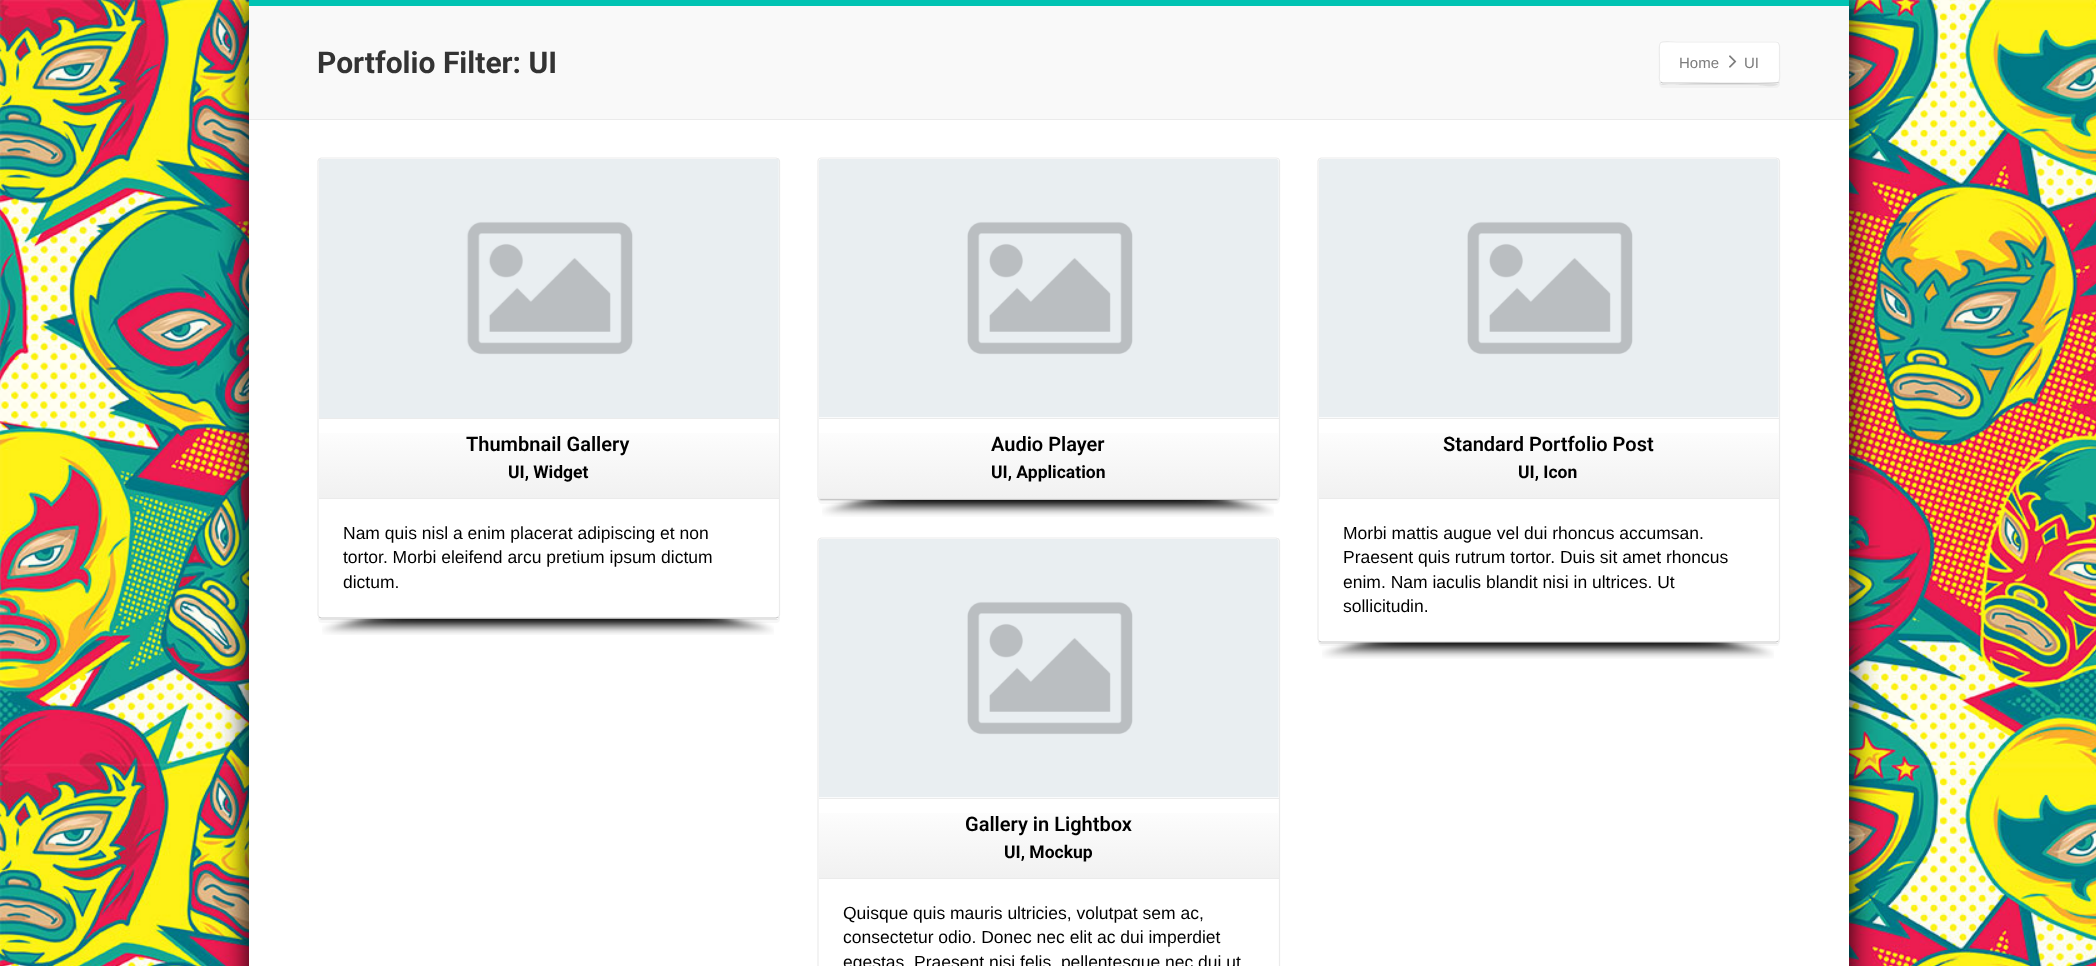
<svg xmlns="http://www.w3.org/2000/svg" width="2096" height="966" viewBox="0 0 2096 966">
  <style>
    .t1 { font: bold 30px Roboto; fill: #333; }
    .t2 { font: 15px Liberation Sans; fill: #7c7c7c; }
    .t3 { font: 600 20px Roboto; fill: #000; }
    .t4 { font: bold 17.5px Roboto; fill: #000; }
    .t5 { font: 17.5px Liberation Sans; fill: #000; }
  </style>
  <defs>
    <linearGradient id="g1" gradientUnits="userSpaceOnUse" x1="549" y1="419" x2="549" y2="498"><stop offset="0" stop-color="#fff"/><stop offset="1" stop-color="#f1f1f1"/></linearGradient>
    <linearGradient id="g2" gradientUnits="userSpaceOnUse" x1="1049" y1="419" x2="1049" y2="498"><stop offset="0" stop-color="#fff"/><stop offset="1" stop-color="#f1f1f1"/></linearGradient>
    <linearGradient id="g3" gradientUnits="userSpaceOnUse" x1="1549" y1="419" x2="1549" y2="498"><stop offset="0" stop-color="#fff"/><stop offset="1" stop-color="#f1f1f1"/></linearGradient>
    <linearGradient id="g4" gradientUnits="userSpaceOnUse" x1="1049" y1="799" x2="1049" y2="878"><stop offset="0" stop-color="#fff"/><stop offset="1" stop-color="#f1f1f1"/></linearGradient>
  </defs>
  <rect width="100%" height="100%" fill="#fff"/>
  <image x="0" y="0" width="2096" height="966" href="images/1.png"/>
  <rect x="249" y="0" width="1600" height="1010" fill="#000" filter="blur(14.5px)"/>
  <rect x="249" y="120" width="1600" height="846" fill="#fff"/>
  <rect x="249" y="0" width="1600" height="6" fill="#00c4b3"/>
  <rect x="249" y="6" width="1600" height="113" fill="#f9f9f9"/>
  <rect x="249" y="119" width="1600" height="1" fill="#ebebeb"/>
  <text x="317" y="73" class="t1">Portfolio Filter: UI</text>
  <path d="M1659 81L1660 84L1662 85H1757C1760 85 1780 90 1780 80L1779 82L1777 84H1681C1681 84 1661 87 1659 81Z" fill="#e8e8e8"/>
  <path d="M1659 81V84C1659 86 1661 88 1663 88H1776C1778 88 1780 86 1780 84V80C1780 82 1778 84 1776 84H1662C1661 84 1660 83 1659 81Z" fill="#00000008"/>
  <rect x="1659" y="41" width="121" height="43" rx="4" fill="#fff"/>
  <path d="M1778.5 82L1778 82.5C1775.5 84 1691.5 83 1681.5 83H1662.5L1660.5 82" fill="none" stroke="#c7c7c7" stroke-width="1.2"/>
  <path d="M1660.5 82C1658.5 80.5 1659.5 75.5 1659.5 74V62.5C1659.5 37 1655 42 1681.5 42H1776C1780.5 42 1779.5 48.5 1779.5 51V68.5C1779.5 71 1780.5 80 1778.5 82" fill="none" stroke="#ebebeb" stroke-width="1.2"/>
  <text x="1679" y="68" class="t2">Home</text>
  <image x="1729" y="55" width="8" height="13" href="images/2.png"/>
  <text x="1744" y="68" class="t2">UI</text>
  <path d="M318 617C319 619 320 620 322 620H776C778 620 780 618 780 616V615C780 617 778 619 776 619H321C320 619 319 618 318 617Z" fill="#ededed"/>
  <path d="M318 617C318 620 318 623 322 623H777C781 622 780 618 780 615C780 617 778 619 776 619H321C320 619 319 618 318 617Z" fill="#00000008"/>
  <rect x="318" y="158" width="462" height="461" rx="4" fill="#fff"/>
  <path d="M778.5 617L776 618H321L319 617" fill="none" stroke="#c7c7c7" stroke-width="1.2"/>
  <path d="M319 617L318 615V161L319 159L321 158H776L778.5 159L779.5 161V615L778.5 617" fill="none" stroke="#ebebeb" stroke-width="1.2"/>
  <rect x="319" y="418" width="460" height="1" fill="#ebebeb"/>
  <image x="319" y="159" width="460" height="259" href="images/3.png"/>
  <path d="M319 269H317C319 269 321 271 321 273V305C321 307 319 309 317 309H319Z" fill="#e9eef1"/>
  <rect x="319" y="433" width="460" height="65" fill="url(#g1)"/>
  <rect x="319" y="498" width="460" height="1" fill="#ebebeb"/>
  <text x="466" y="451" class="t3">Thumbnail Gallery</text>
  <text x="508" y="478" class="t4">UI, Widget</text>
  <text x="343" y="539" class="t5">Nam quis nisl a enim placerat adipiscing et non</text>
  <text x="343" y="563" class="t5">tortor. Morbi eleifend arcu pretium ipsum dictum</text>
  <text x="343" y="588" class="t5">dictum.</text>
  <image x="322" y="618" width="452" height="17" href="images/4.png"/>
  <path d="M818 499C819 500 820 501 822 501H1276C1278 501 1280 499 1280 497V496C1280 498 1278 500 1276 500H821C820 500 819 499 818 499Z" fill="#ededed"/>
  <path d="M818 498V500C818 502 820 504 822 504H1276C1278 504 1280 502 1280 500V496C1280 498 1278 500 1276 500H821C820 500 819 499 818 498Z" fill="#00000008"/>
  <rect x="818" y="158" width="462" height="342" rx="4" fill="#fff"/>
  <path d="M1278.5 498.5L1276 499.5H821L819 498.5" fill="none" stroke="#00000038" stroke-width="1.2"/>
  <path d="M819 498.5L818 496.5V161C818 159.5 819.5 158 821 158H1276C1278 158 1279.5 159.5 1279.5 161V496.5L1278.5 498.5" fill="none" stroke="#ebebeb" stroke-width="1.2"/>
  <rect x="819" y="418" width="460" height="1" fill="#ebebeb"/>
  <image x="819" y="159" width="460" height="259" href="images/5.png"/>
  <rect x="819" y="433" width="460" height="65" fill="url(#g2)"/>
  <rect x="819" y="498" width="460" height="1" fill="#ebebeb"/>
  <text x="991" y="451" class="t3">Audio Player</text>
  <text x="991" y="478" class="t4">UI, Application</text>
  <image x="822" y="500" width="452" height="17" href="images/6.png"/>
  <path d="M1318 641C1318 643 1320 644 1322 644H1776C1778 644 1780 642 1780 640V639C1780 641 1779 642 1777 642H1320Z" fill="#ededed"/>
  <path d="M1318 641C1318 643 1319 646 1322 646H1778C1780 644 1780 641 1780 639C1780 641 1778 642 1776 642H1321C1320 642 1319 642 1318 641Z" fill="#00000008"/>
  <rect x="1318" y="158" width="462" height="485" rx="4" fill="#fff"/>
  <path d="M1778.5 641L1776 642H1321L1319 641" fill="none" stroke="#c7c7c7" stroke-width="1.2"/>
  <path d="M1319 641L1318 639V161L1319 159L1321 158H1776L1778.5 159L1779.5 161V639L1778.5 641" fill="none" stroke="#ebebeb" stroke-width="1.2"/>
  <rect x="1319" y="418" width="460" height="1" fill="#ebebeb"/>
  <image x="1319" y="159" width="460" height="259" href="images/7.png"/>
  <rect x="1319" y="433" width="460" height="65" fill="url(#g3)"/>
  <rect x="1319" y="498" width="460" height="1" fill="#ebebeb"/>
  <text x="1443" y="451" class="t3">Standard Portfolio Post</text>
  <text x="1518" y="478" class="t4">UI, Icon</text>
  <text x="1343" y="539" class="t5">Morbi mattis augue vel dui rhoncus accumsan.</text>
  <text x="1343" y="563" class="t5">Praesent quis rutrum tortor. Duis sit amet rhoncus</text>
  <text x="1343" y="588" class="t5">enim. Nam iaculis blandit nisi in ultrices. Ut</text>
  <text x="1343" y="612" class="t5">sollicitudin.</text>
  <image x="1322" y="642" width="452" height="17" href="images/8.png"/>
  <path d="M819 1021L818 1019V541L819 539L821 538H1276L1278.5 539L1279.5 541V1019L1278.5 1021" fill="none" stroke="#ebebeb" stroke-width="1.2"/>
  <rect x="819" y="798" width="460" height="1" fill="#ebebeb"/>
  <image x="819" y="539" width="460" height="259" href="images/7.png"/>
  <rect x="819" y="813" width="460" height="65" fill="url(#g4)"/>
  <rect x="819" y="878" width="460" height="1" fill="#ebebeb"/>
  <text x="965" y="831" class="t3">Gallery in Lightbox</text>
  <text x="1004" y="858" class="t4">UI, Mockup</text>
  <text x="843" y="919" class="t5">Quisque quis mauris ultricies, volutpat sem ac,</text>
  <text x="843" y="943" class="t5">consectetur odio. Donec nec elit ac dui imperdiet</text>
  <text x="843" y="968" class="t5">egestas. Praesent nisi felis, pellentesque nec dui ut</text>
</svg>
